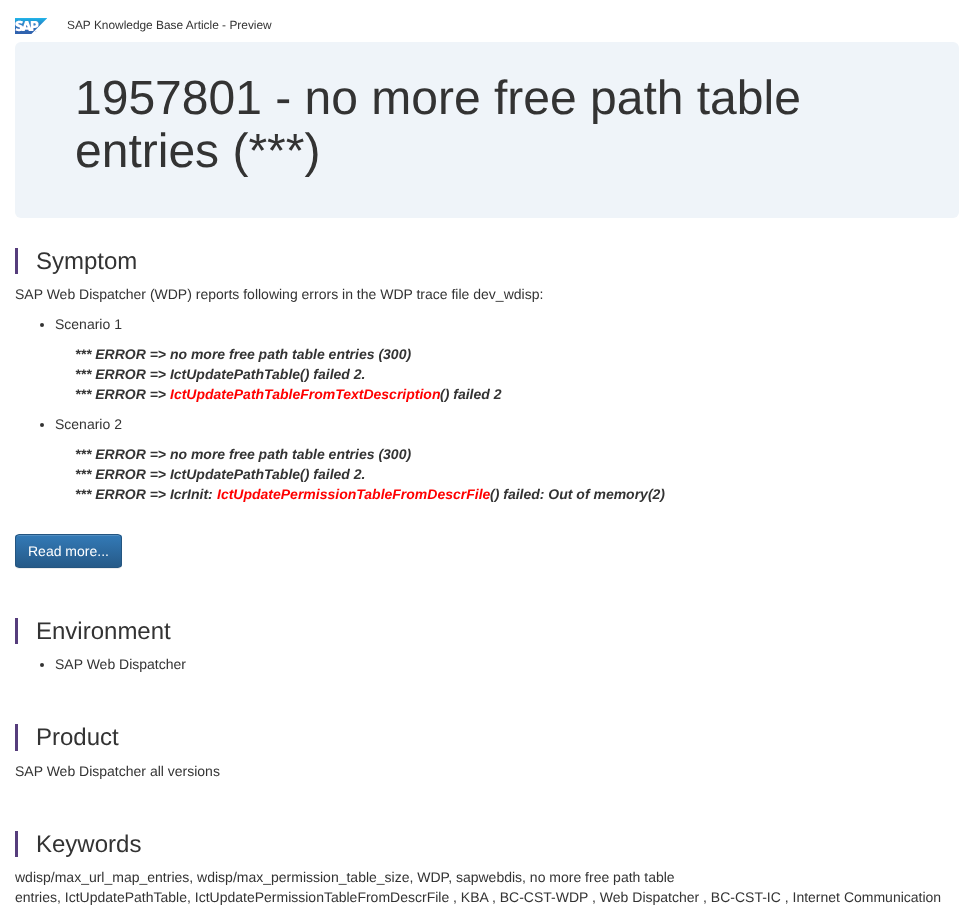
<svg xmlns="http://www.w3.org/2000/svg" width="974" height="915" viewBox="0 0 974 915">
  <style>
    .t1 { font: 11.9px Liberation Sans; fill: #333; }
    .t2 { font: 48px Liberation Sans; fill: #333; }
    .t3 { font: 24px Liberation Sans; fill: #333; }
    .t4 { font: 14px Liberation Sans; fill: #333; }
    .t5 { font: italic bold 14px Liberation Sans; fill: #333; }
    .t6 { font: italic bold 14px Liberation Sans; fill: #f00; }
    .t7 { font: 14px Liberation Sans; fill: #fff; }
  </style>
  <defs>
    <clipPath id="clip1"><rect x="15" y="534" width="107" height="34" rx="4"/></clipPath>
    <linearGradient id="g1" gradientUnits="userSpaceOnUse" x1="69" y1="535" x2="69" y2="567"><stop offset="0" stop-color="#337ab7"/><stop offset="1" stop-color="#265a88"/></linearGradient>
  </defs>
  <rect width="100%" height="100%" fill="#fff"/>
  <image x="15" y="18" width="32" height="16" href="images/1.png"/>
  <text x="67" y="29" class="t1">SAP Knowledge Base Article - Preview</text>
  <rect x="15" y="42" width="944" height="176" rx="6" fill="#eff4f9"/>
  <text x="75" y="114" class="t2">1957801 - no more free path table</text>
  <text x="75" y="167" class="t2">entries (***)</text>
  <rect x="15" y="248" width="3" height="26" fill="#563d7c"/>
  <text x="36" y="269" class="t3">Symptom</text>
  <text x="15" y="299" class="t4">SAP Web Dispatcher (WDP) reports following errors in the WDP trace file dev_wdisp:</text>
  <circle cx="42" cy="325" r="2" fill="#333"/>
  <text x="55" y="329" class="t4">Scenario 1</text>
  <text x="75" y="359" class="t5">*** ERROR =&gt; no more free path table entries (300)</text>
  <text x="75" y="379" class="t5">*** ERROR =&gt; IctUpdatePathTable() failed 2.</text>
  <text x="75" y="399" class="t5">*** ERROR =&gt;</text>
  <text x="170" y="399" class="t6">IctUpdatePathTableFromTextDescription</text>
  <text x="440" y="399" class="t5">() failed 2</text>
  <circle cx="42" cy="425" r="2" fill="#333"/>
  <text x="55" y="429" class="t4">Scenario 2</text>
  <text x="75" y="459" class="t5">*** ERROR =&gt; no more free path table entries (300)</text>
  <text x="75" y="479" class="t5">*** ERROR =&gt; IctUpdatePathTable() failed 2.</text>
  <text x="75" y="499" class="t5">*** ERROR =&gt; IcrInit:</text>
  <text x="217" y="499" class="t6">IctUpdatePermissionTableFromDescrFile</text>
  <text x="490" y="499" class="t5">() failed: Out of memory(2)</text>
  <rect x="15" y="535" width="107" height="34" rx="4" fill="#00000012" filter="blur(0.5px)"/>
  <g clip-path="url(#clip1)">
    <rect x="15" y="535" width="107" height="32" fill="url(#g1)"/>
  </g>
  <path d="M19 536H118C120 536 121 537 121 539C121 531 104 535 102 535H36C33 535 16 531 16 539C16 537 17 536 19 536Z" fill="#528ec1"/>
  <rect x="15.5" y="534.5" width="106" height="33" rx="3.5" fill="none" stroke="#245580"/>
  <text x="28" y="556" class="t7">Read more...</text>
  <rect x="15" y="618" width="3" height="26" fill="#563d7c"/>
  <text x="36" y="639" class="t3">Environment</text>
  <circle cx="42" cy="665" r="2" fill="#333"/>
  <text x="55" y="669" class="t4">SAP Web Dispatcher</text>
  <rect x="15" y="724" width="3" height="27" fill="#563d7c"/>
  <text x="36" y="745" class="t3">Product</text>
  <text x="15" y="776" class="t4">SAP Web Dispatcher all versions</text>
  <rect x="15" y="831" width="3" height="26" fill="#563d7c"/>
  <text x="36" y="852" class="t3">Keywords</text>
  <text x="15" y="882" class="t4">wdisp/max_url_map_entries, wdisp/max_permission_table_size, WDP, sapwebdis, no more free path table</text>
  <text x="15" y="902" class="t4">entries, IctUpdatePathTable, IctUpdatePermissionTableFromDescrFile , KBA , BC-CST-WDP , Web Dispatcher , BC-CST-IC , Internet Communication</text>
</svg>
